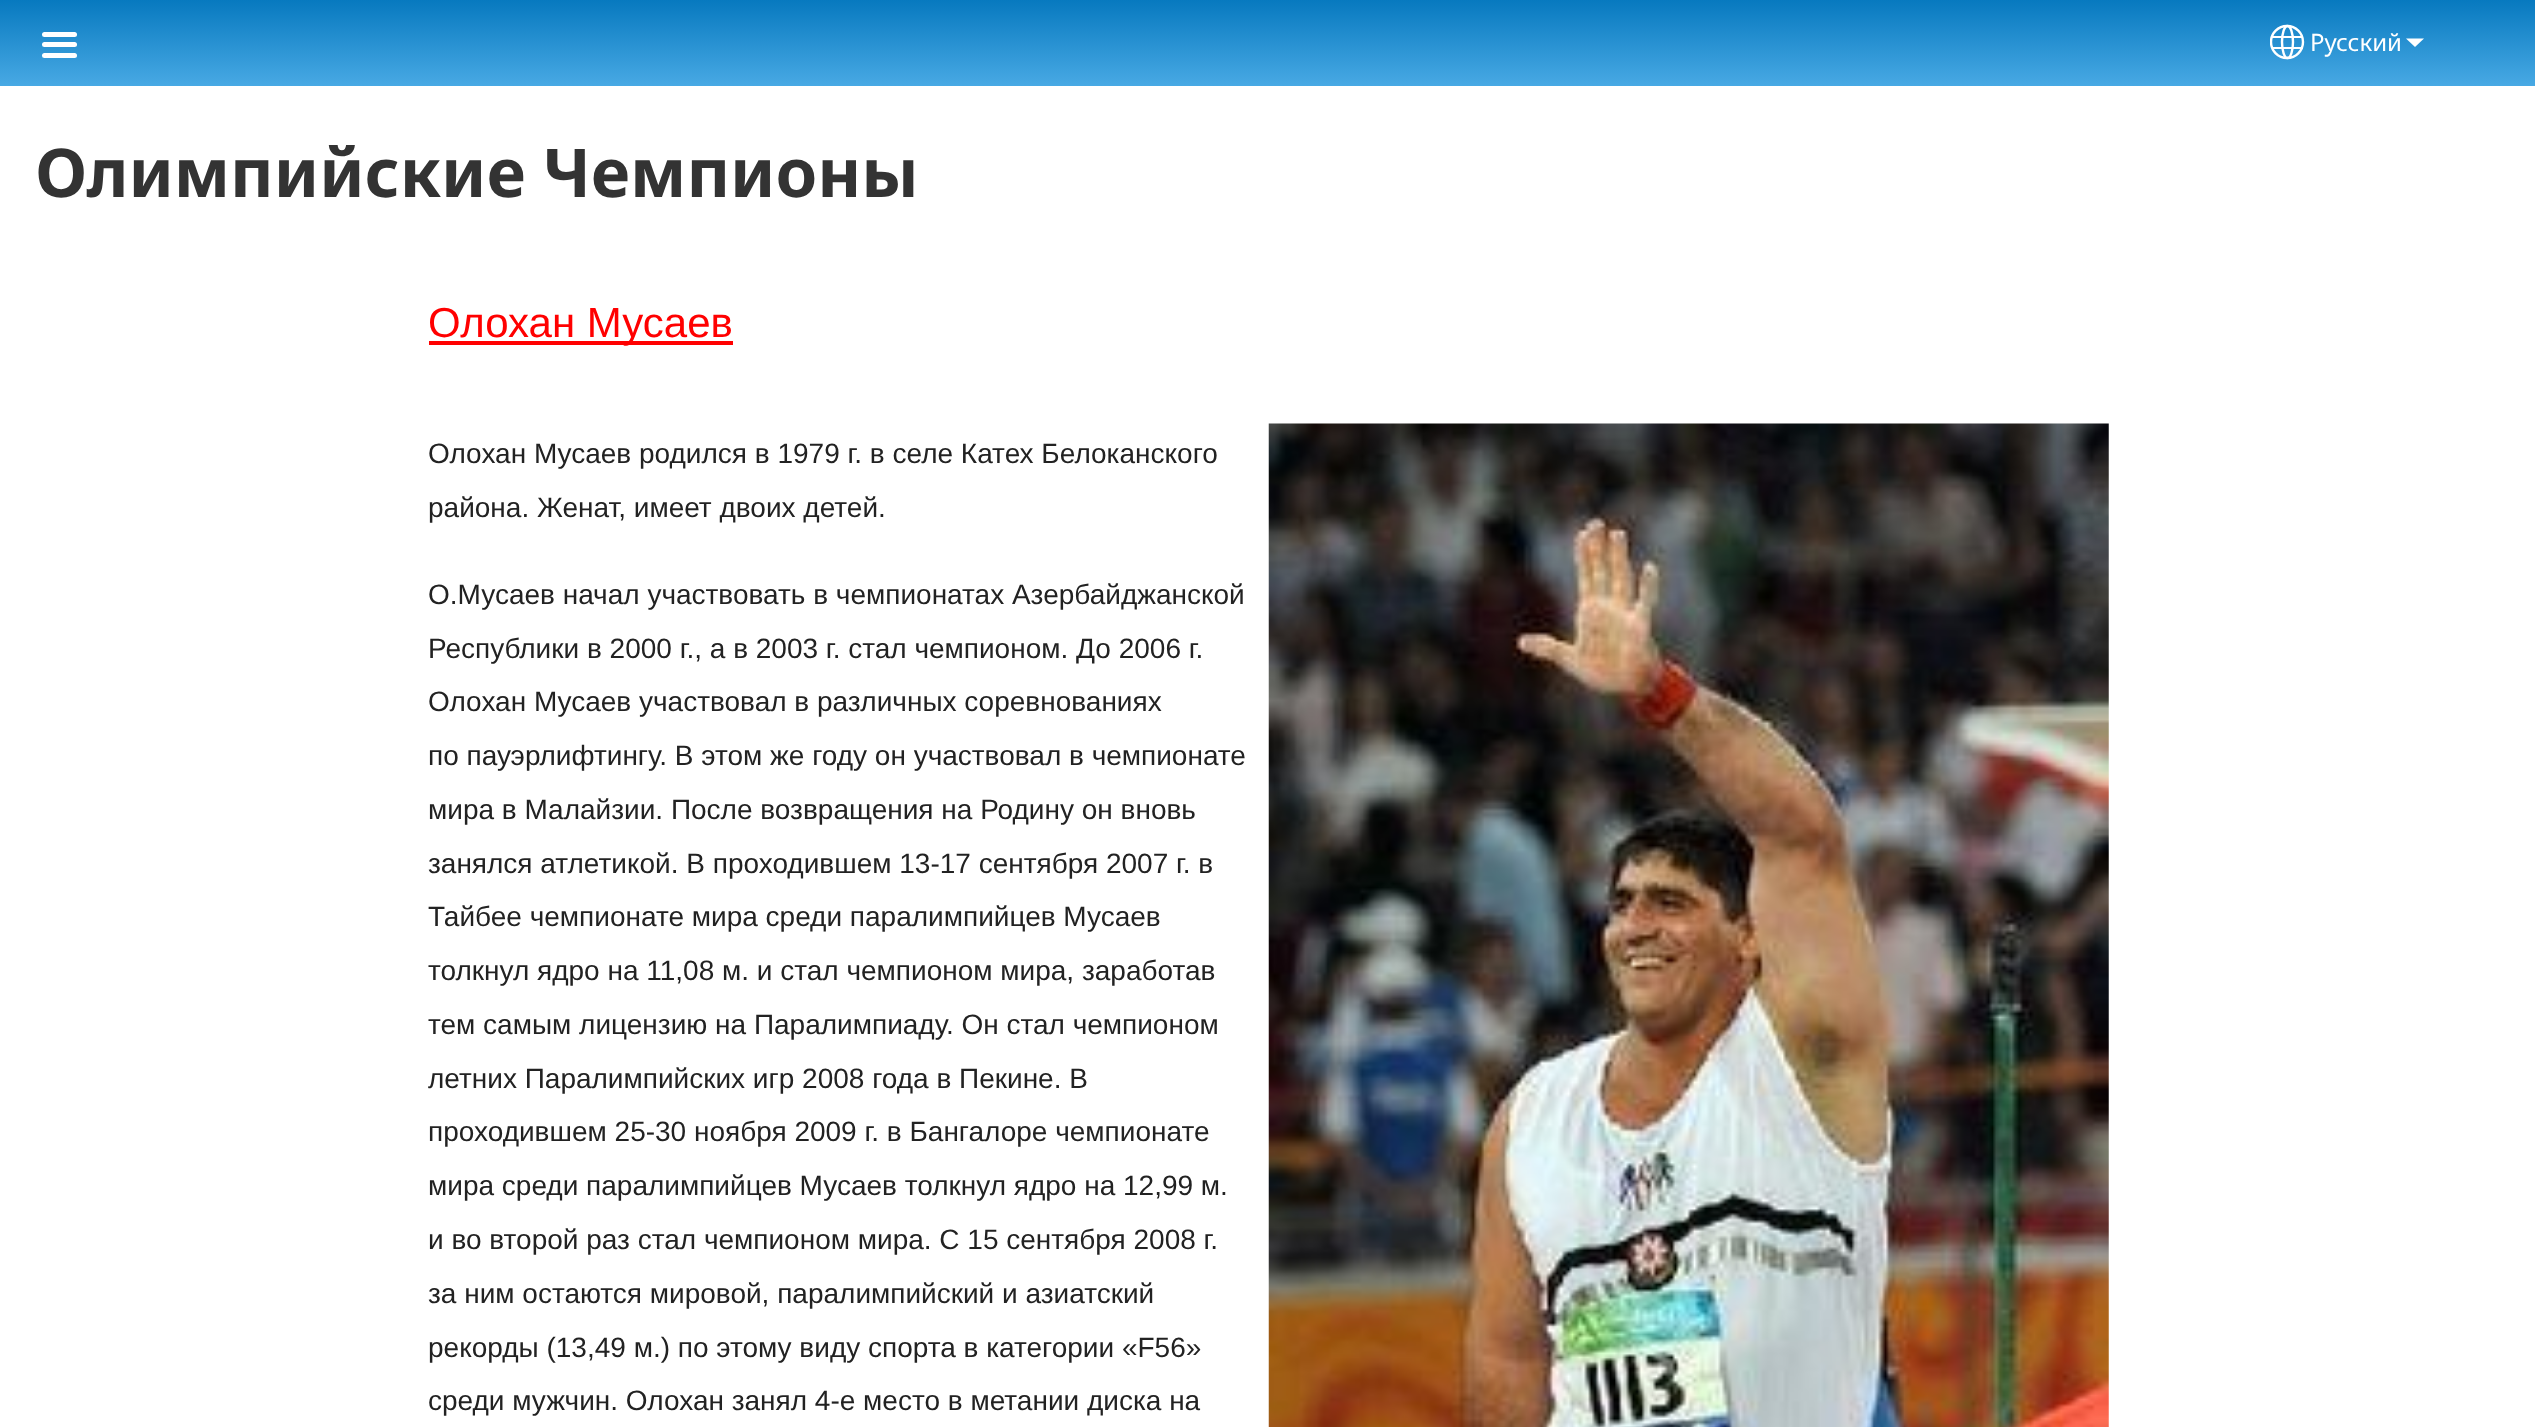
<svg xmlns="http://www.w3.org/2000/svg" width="2535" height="1427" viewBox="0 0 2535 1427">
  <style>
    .t1 { font: 24px Noto Sans; fill: #fff; }
    .t2 { font: bold 67.25px Noto Sans; fill: #333; }
    .t3 { font: 42px Liberation Sans; fill: #f00; }
    .t4 { font: 28px Liberation Sans; fill: #222; }
  </style>
  <defs>
    <linearGradient id="g1" gradientUnits="userSpaceOnUse" x1="1268" y1="0" x2="1268" y2="86"><stop offset="0" stop-color="#0779bf"/><stop offset="1" stop-color="#48a9e4"/></linearGradient>
    <clipPath id="clip1"><rect x="2270" y="11" width="35" height="49"/></clipPath>
  </defs>
  <rect width="100%" height="100%" fill="#fff"/>
  <rect x="0" y="0" width="2535" height="86" fill="url(#g1)"/>
  <rect x="42" y="32" width="35" height="5" rx="2.5" fill="#fff"/>
  <rect x="42" y="42" width="35" height="5" rx="2.5" fill="#fff"/>
  <rect x="42" y="53" width="35" height="5" rx="2.5" fill="#fff"/>
  <g clip-path="url(#clip1)">
    <circle cx="2287" cy="42" r="16" fill="none" stroke="#fff" stroke-width="2.4"/>
  </g>
  <ellipse cx="2287.5" cy="42" rx="5.5" ry="16" fill="none" stroke="#fff" stroke-width="2.4"/>
  <rect x="2272" y="36" width="31" height="2" fill="#fff"/>
  <rect x="2272" y="47" width="31" height="2" fill="#fff"/>
  <text x="2310" y="51" class="t1">Русский</text>
  <path d="M2406 38.5H2424L2415 47Z" fill="#fff"/>
  <text x="35" y="197" class="t2">Олимпийские Чемпионы</text>
  <rect x="429" y="341" width="304" height="4" fill="#f00"/>
  <text x="428" y="337" class="t3">Олохан Мусаев</text>
  <text x="428" y="463" class="t4">Олохан Мусаев родился в 1979 г. в селе Катех Белоканского</text>
  <text x="428" y="517" class="t4">района. Женат, имеет двоих детей.</text>
  <text x="428" y="604" class="t4">О.Мусаев начал участвовать в чемпионатах Азербайджанской</text>
  <text x="428" y="658" class="t4">Республики в 2000 г., а в 2003 г. стал чемпионом. До 2006 г.</text>
  <text x="428" y="711" class="t4">Олохан Мусаев участвовал в различных соревнованиях</text>
  <text x="428" y="765" class="t4">по пауэрлифтингу. В этом же году он участвовал в чемпионате</text>
  <text x="428" y="819" class="t4">мира в Малайзии. После возвращения на Родину он вновь</text>
  <text x="428" y="873" class="t4">занялся атлетикой. В проходившем 13-17 сентября 2007 г. в</text>
  <text x="428" y="926" class="t4">Тайбее чемпионате мира среди паралимпийцев Мусаев</text>
  <text x="428" y="980" class="t4">толкнул ядро на 11,08 м. и стал чемпионом мира, заработав</text>
  <text x="428" y="1034" class="t4">тем самым лицензию на Паралимпиаду. Он стал чемпионом</text>
  <text x="428" y="1088" class="t4">летних Паралимпийских игр 2008 года в Пекине. В</text>
  <text x="428" y="1141" class="t4">проходившем 25-30 ноября 2009 г. в Бангалоре чемпионате</text>
  <text x="428" y="1195" class="t4">мира среди паралимпийцев Мусаев толкнул ядро на 12,99 м.</text>
  <text x="428" y="1249" class="t4">и во второй раз стал чемпионом мира. С 15 сентября 2008 г.</text>
  <text x="428" y="1303" class="t4">за ним остаются мировой, паралимпийский и азиатский</text>
  <text x="428" y="1357" class="t4">рекорды (13,49 м.) по этому виду спорта в категории «F56»</text>
  <text x="428" y="1410" class="t4">среди мужчин. Олохан занял 4-е место в метании диска на</text>
  <image x="1268" y="423" width="841" height="1004" href="images/1.png"/>
</svg>
